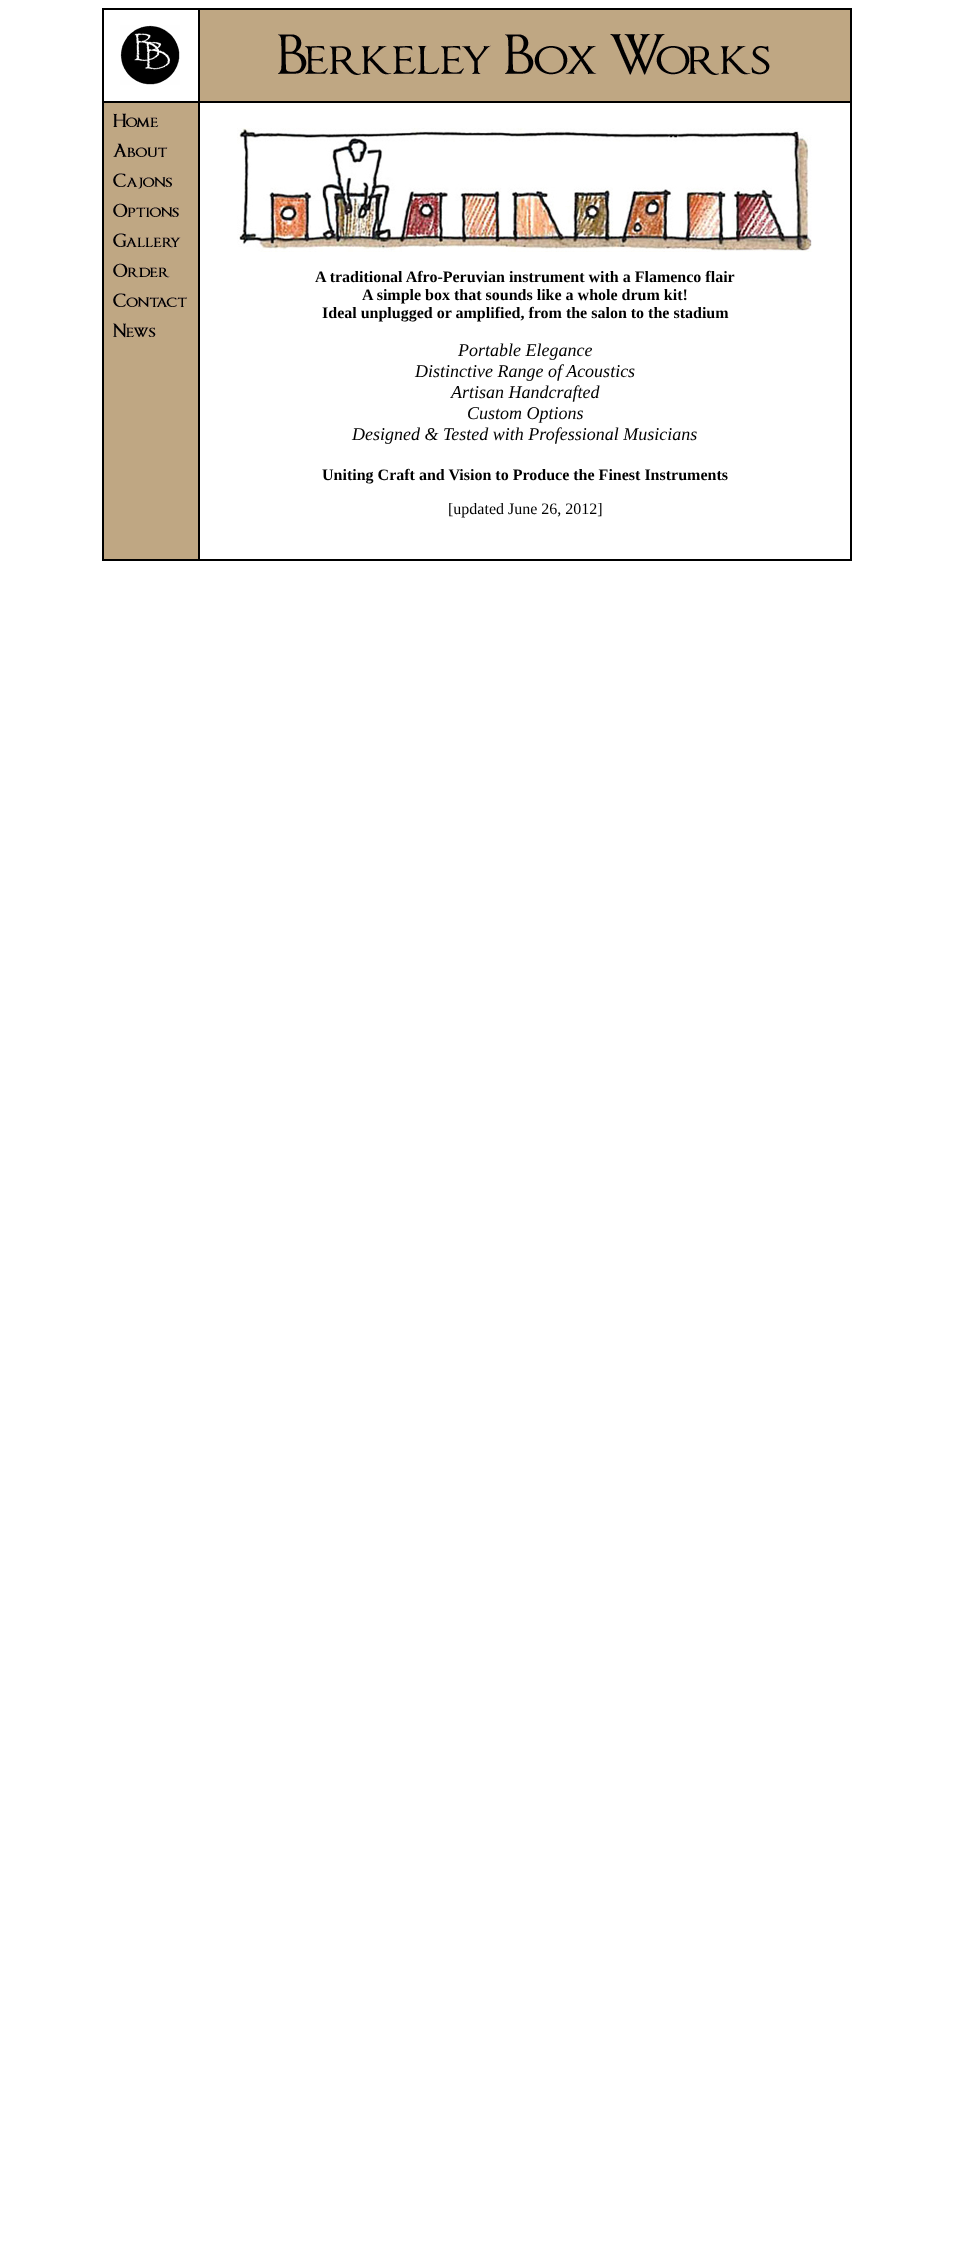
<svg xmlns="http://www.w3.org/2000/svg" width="954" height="2247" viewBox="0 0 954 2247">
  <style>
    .t1 { font: bold 16px Liberation Serif; fill: #000; }
    .t2 { font: italic 18px Liberation Serif; fill: #000; }
    .t3 { font: 16px Liberation Serif; fill: #000; }
  </style>
  <rect width="100%" height="100%" fill="#fff"/>
  <rect x="102.5" y="8.5" width="749" height="552" fill="none" stroke="#000"/>
  <rect x="103.5" y="9.5" width="95" height="92" fill="none" stroke="#000"/>
  <image x="120" y="25" width="60" height="60" href="images/1.png"/>
  <rect x="199.5" y="9.5" width="651" height="92" fill="#bfa783" stroke="#000"/>
  <image x="278" y="34" width="492" height="41" href="images/2.png"/>
  <rect x="103.5" y="102.5" width="95" height="457" fill="#bfa783" stroke="#000"/>
  <image x="113" y="113" width="74" height="225" href="images/3.png"/>
  <rect x="199.5" y="102.5" width="651" height="457" fill="none" stroke="#000"/>
  <image x="237" y="128" width="575" height="124" href="images/4.png"/>
  <text x="315" y="282" class="t1">A traditional Afro-Peruvian instrument with a Flamenco flair</text>
  <text x="362" y="300" class="t1">A simple box that sounds like a whole drum kit!</text>
  <text x="322" y="318" class="t1">Ideal unplugged or amplified, from the salon to the stadium</text>
  <text x="458" y="356" class="t2">Portable Elegance</text>
  <text x="415" y="377" class="t2">Distinctive Range of Acoustics</text>
  <text x="451" y="398" class="t2">Artisan Handcrafted</text>
  <text x="467" y="419" class="t2">Custom Options</text>
  <text x="352" y="440" class="t2">Designed &amp; Tested with Professional Musicians</text>
  <text x="322" y="480" class="t1">Uniting Craft and Vision to Produce the Finest Instruments</text>
  <text x="448" y="514" class="t3">[updated June 26, 2012]</text>
</svg>
